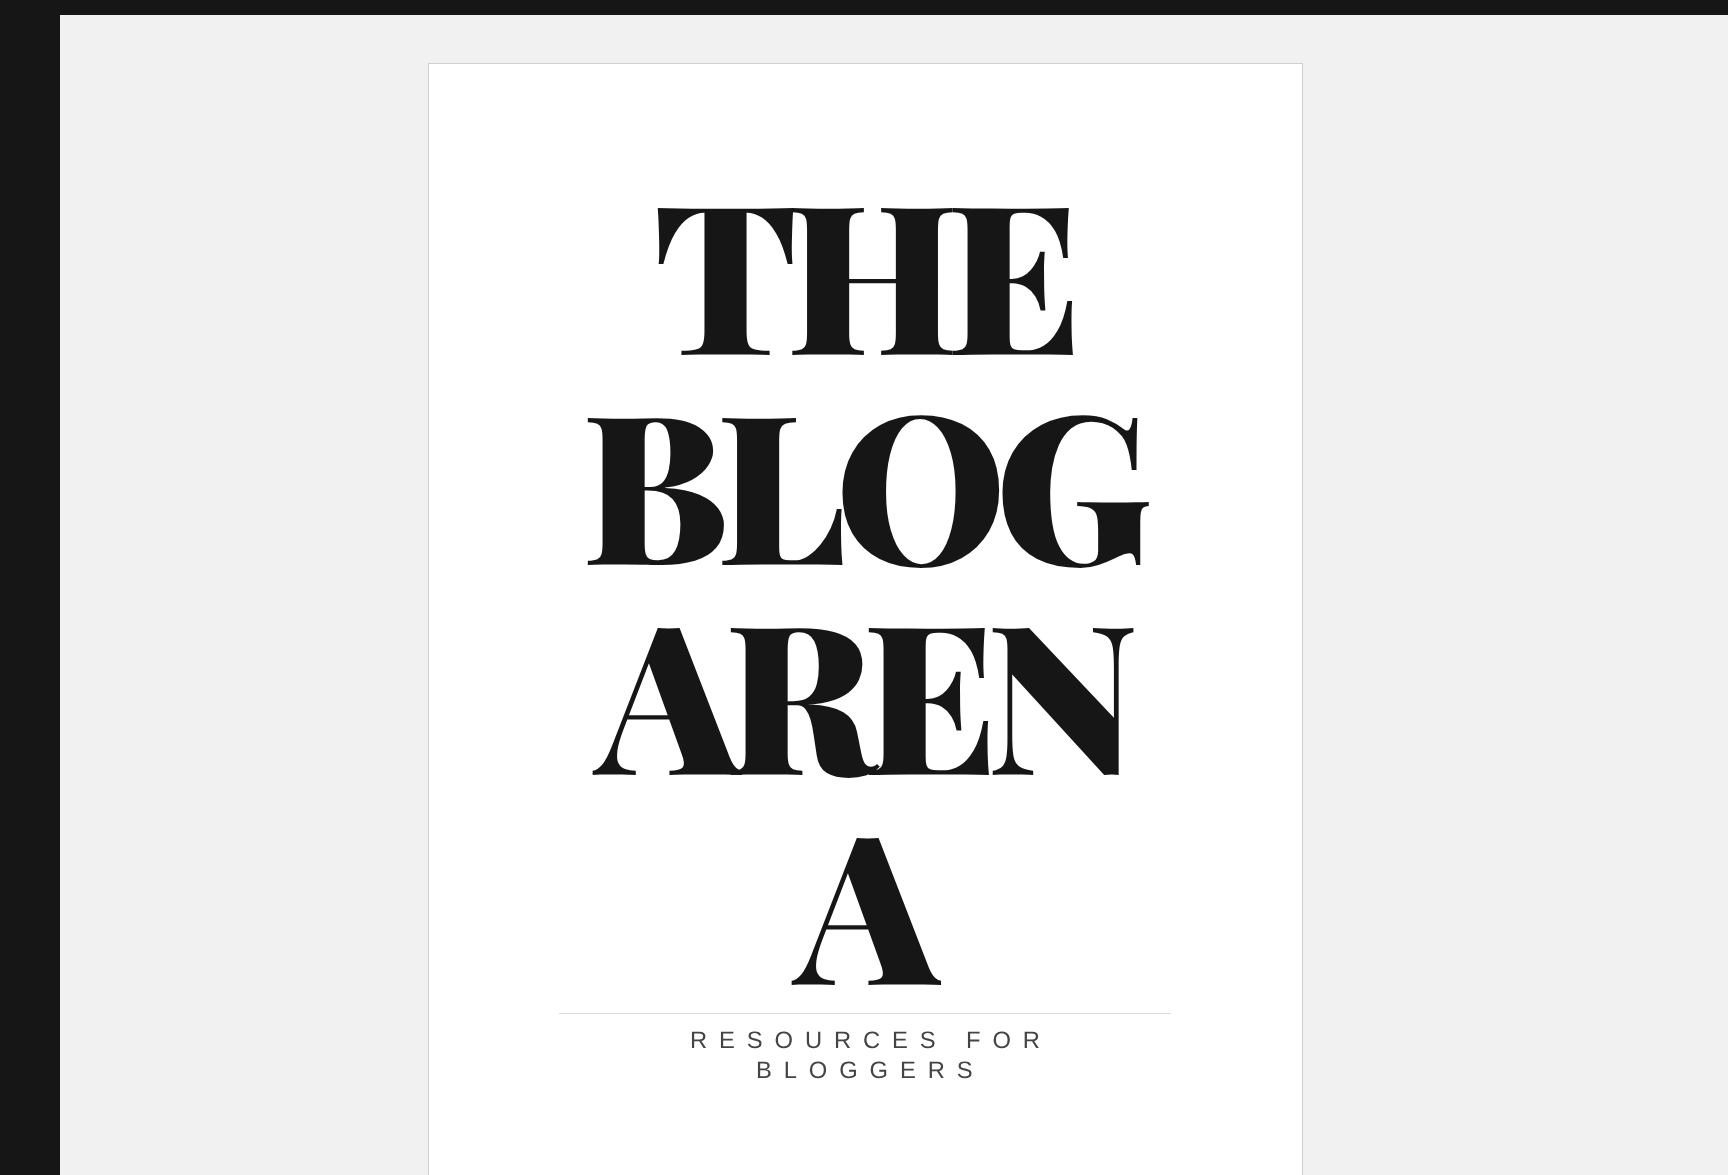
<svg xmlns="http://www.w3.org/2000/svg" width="1728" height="1175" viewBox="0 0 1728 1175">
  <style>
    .t1 { font: 900 207.5px Playfair Display; letter-spacing: -11.5px; fill: #171617; }
    .t2 { font: 23.75px Liberation Sans; letter-spacing: 11.9px; fill: #444; }
  </style>
  <rect width="100%" height="100%" fill="#f1f1f1"/>
  <rect x="428.5" y="63.5" width="874" height="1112" fill="#fff" stroke="#ccd0d4"/>
  <rect x="0" y="0" width="60" height="1175" fill="#171617"/>
  <rect x="60" y="0" width="1668" height="15" fill="#171617"/>
  <rect x="559" y="1013" width="612" height="1" fill="#dadada"/>
  <text x="653" y="355" class="t1">THE</text>
  <text x="582" y="565" class="t1">BLOG</text>
  <text x="597" y="775" class="t1">AREN</text>
  <text x="796" y="985" class="t1">A</text>
  <text x="690" y="1048" class="t2">RESOURCES FOR</text>
  <text x="756" y="1078" class="t2">BLOGGERS</text>
</svg>
